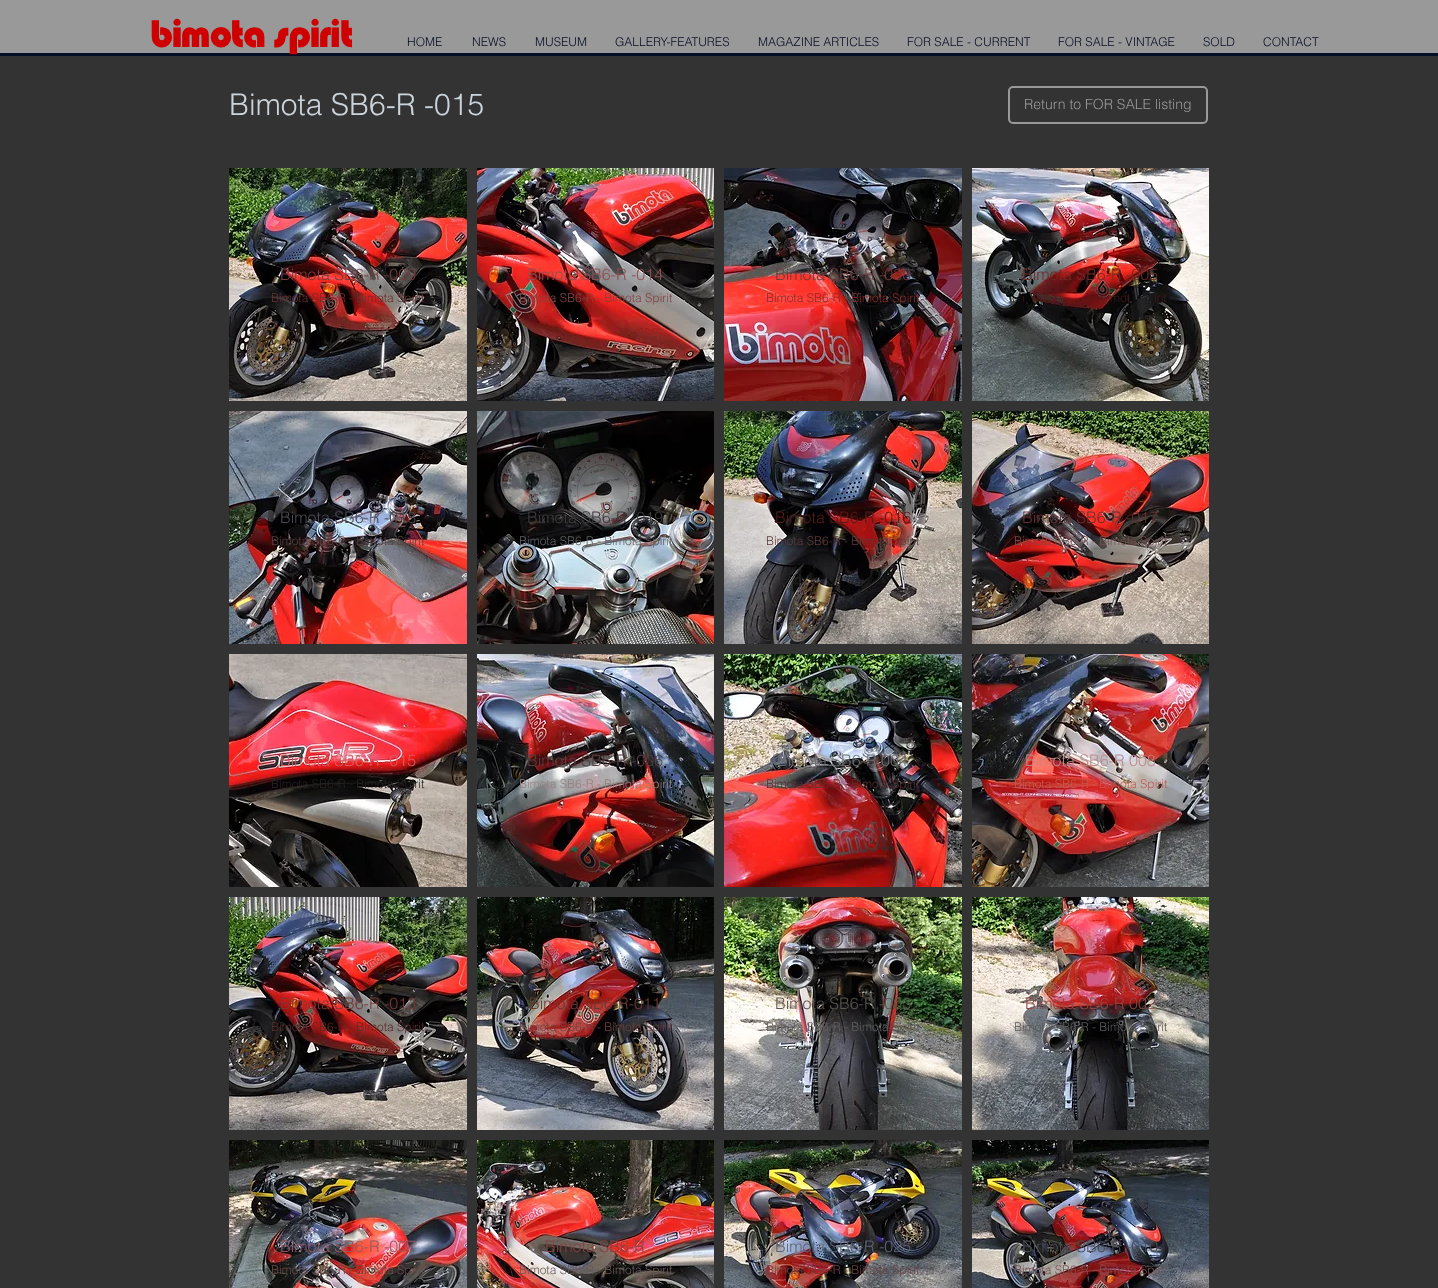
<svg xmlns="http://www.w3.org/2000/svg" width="1438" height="1288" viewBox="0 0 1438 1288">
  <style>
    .t1 { font: 40px 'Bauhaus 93'; letter-spacing: -2px; fill: #cf0000; }
    .t2 { font: 40px 'Bauhaus 93'; letter-spacing: -1.25px; fill: #cf0000; }
    .t3 { font: 300 12px helvetica; fill: #060e25; }
    .t4 { font: 300 30px helvetica; fill: #ccd4db; }
    .t5 { font: 300 14px helvetica; fill: #999; }
    .t6 { font: 300 16px helvetica; fill: #763e3e; }
    .t7 { font: 300 12px helvetica; fill: #683130; }
    .t8 { font: 300 16px helvetica; fill: #904f4f; }
    .t9 { font: 300 12px helvetica; fill: #844443; }
    .t10 { font: 300 16px helvetica; fill: #6f3b3a; }
    .t11 { font: 300 12px helvetica; fill: #8c2c2a; }
    .t12 { font: 300 16px helvetica; fill: #712c27; }
    .t13 { font: 300 12px helvetica; fill: #441c1c; }
    .t14 { font: 300 16px helvetica; fill: #4b4b55; }
    .t15 { font: 300 12px helvetica; fill: #553f42; }
    .t16 { font: 300 16px helvetica; fill: #3e3b3d; }
    .t17 { font: 300 12px helvetica; fill: #5f6266; }
    .t18 { font: 300 16px helvetica; fill: #561b19; }
    .t19 { font: 300 12px helvetica; fill: #5c3a39; }
    .t20 { font: 300 16px helvetica; fill: #683130; }
    .t21 { font: 300 12px helvetica; fill: #744e4d; }
    .t22 { font: 300 16px helvetica; fill: #d35c61; }
    .t23 { font: 300 12px helvetica; fill: #262222; }
    .t24 { font: 300 16px helvetica; fill: #553f42; }
    .t25 { font: 300 12px helvetica; fill: #977e7f; }
    .t26 { font: 300 16px helvetica; fill: #6e6e70; }
    .t27 { font: 300 12px helvetica; fill: #5a2f32; }
    .t28 { font: 300 16px helvetica; fill: #bc8a89; }
    .t29 { font: 300 12px helvetica; fill: #be5a54; }
    .t30 { font: 300 16px helvetica; fill: #793835; }
    .t31 { font: 300 12px helvetica; fill: #5b2b2a; }
    .t32 { font: 300 16px helvetica; fill: #703731; }
    .t33 { font: 300 12px helvetica; fill: #6d4041; }
    .t34 { font: 300 16px helvetica; fill: #5a544d; }
    .t35 { font: 300 12px helvetica; fill: #625f5d; }
    .t36 { font: 300 16px helvetica; fill: #8d4646; }
    .t37 { font: 300 12px helvetica; fill: #5a5b5b; }
    .t38 { font: 300 16px helvetica; fill: #945960; }
    .t39 { font: 300 12px helvetica; fill: #6d4846; }
    .t40 { font: 300 16px helvetica; fill: #844443; }
    .t41 { font: 300 12px helvetica; fill: #685a59; }
    .t42 { font: 300 16px helvetica; fill: #5e6475; }
    .t43 { font: 300 12px helvetica; fill: #7b4f52; }
  </style>
  <rect width="100%" height="100%" fill="#333"/>
  <rect x="0" y="0" width="1438" height="53" fill="#999"/>
  <rect x="0" y="53" width="1438" height="3" fill="#060e25"/>
  <text x="150" y="47" class="t1">bi</text>
  <text x="180" y="47" class="t2">mota s</text>
  <text x="288" y="47" class="t1">pi</text>
  <text x="318" y="47" class="t2">rit</text>
  <text x="407" y="46" class="t3">HOME</text>
  <text x="472" y="46" class="t3">NEWS</text>
  <text x="535" y="46" class="t3">MUSEUM</text>
  <text x="615" y="46" class="t3">GALLERY-FEATURES</text>
  <text x="758" y="46" class="t3">MAGAZINE ARTICLES</text>
  <text x="907" y="46" class="t3">FOR SALE - CURRENT</text>
  <text x="1058" y="46" class="t3">FOR SALE - VINTAGE</text>
  <text x="1203" y="46" class="t3">SOLD</text>
  <text x="1263" y="46" class="t3">CONTACT</text>
  <text x="229" y="115" class="t4">Bimota SB6-R -015</text>
  <rect x="1009" y="87" width="198" height="36" rx="4" fill="none" stroke="#999" stroke-width="2"/>
  <text x="1024" y="109" class="t5">Return to FOR SALE listing</text>
  <image x="229" y="168" width="238" height="233" href="images/1.png"/>
  <text x="280" y="280" class="t6">Bimota SB6-R -009</text>
  <text x="271" y="302" class="t7">Bimota SB6-R - Bimota Spirit</text>
  <image x="477" y="168" width="237" height="233" href="images/2.png"/>
  <text x="527" y="280" class="t8">Bimota SB6-R -014</text>
  <text x="519" y="302" class="t9">Bimota SB6-R - Bimota Spirit</text>
  <image x="724" y="168" width="238" height="233" href="images/3.png"/>
  <text x="775" y="280" class="t10">Bimota SB6-R -030</text>
  <text x="766" y="302" class="t11">Bimota SB6-R - Bimota Spirit</text>
  <image x="972" y="168" width="237" height="233" href="images/4.png"/>
  <text x="1022" y="280" class="t12">Bimota SB6-R -005</text>
  <text x="1022" y="302" class="t13">i</text>
  <text x="1110" y="302" class="t13">mot</text>
  <text x="1154" y="302" class="t13">irit</text>
  <image x="229" y="411" width="238" height="233" href="images/5.png"/>
  <text x="280" y="523" class="t14">Bimota SB6-R -018</text>
  <text x="271" y="545" class="t15">Bimota SB6-R - Bimota Spirit</text>
  <image x="477" y="411" width="237" height="233" href="images/6.png"/>
  <text x="527" y="523" class="t16">Bimota SB6-R -019</text>
  <text x="519" y="545" class="t17">Bimota SB6-R - Bimota Spirit</text>
  <image x="724" y="411" width="238" height="233" href="images/7.png"/>
  <text x="775" y="523" class="t18">Bimota SB6-R -016</text>
  <text x="766" y="545" class="t19">Bimota SB6-R - Bimota Spirit</text>
  <image x="972" y="411" width="237" height="233" href="images/8.png"/>
  <text x="1022" y="523" class="t20">Bimota SB6-R -017</text>
  <text x="1014" y="545" class="t21">Bimota SB6-R - Bimota Spirit</text>
  <image x="229" y="654" width="238" height="233" href="images/9.png"/>
  <text x="280" y="766" class="t22">Bimota SB6-R -015</text>
  <text x="271" y="788" class="t23">Bimota SB6-R - Bimota Spirit</text>
  <image x="477" y="654" width="237" height="233" href="images/10.png"/>
  <text x="527" y="766" class="t24">Bimota SB6-R -006</text>
  <text x="519" y="788" class="t25">Bimota SB6-R - Bimota Spirit</text>
  <image x="724" y="654" width="238" height="233" href="images/11.png"/>
  <text x="777" y="766" class="t26">Bimota SB6-R 004</text>
  <text x="766" y="788" class="t27">Bimota SB6-R - Bimota Spirit</text>
  <image x="972" y="654" width="237" height="233" href="images/12.png"/>
  <text x="1025" y="766" class="t28">Bimota SB6-R 008</text>
  <text x="1014" y="788" class="t29">Bimota SB6-R - Bimota Spirit</text>
  <image x="229" y="897" width="238" height="233" href="images/13.png"/>
  <text x="280" y="1009" class="t30">Bimota SB6-R -013</text>
  <text x="271" y="1031" class="t31">Bimota SB6-R - Bimota Spirit</text>
  <image x="477" y="897" width="237" height="233" href="images/14.png"/>
  <text x="529" y="1009" class="t32">Bimota SB6-R-011</text>
  <text x="519" y="1031" class="t33">Bimota SB6-R - Bimota Spirit</text>
  <image x="724" y="897" width="238" height="233" href="images/15.png"/>
  <text x="775" y="1009" class="t34">Bimota SB6-R -003</text>
  <text x="766" y="1031" class="t35">Bimota SB6-R - Bimota Spirit</text>
  <image x="972" y="897" width="237" height="233" href="images/16.png"/>
  <text x="1025" y="1009" class="t36">Bimota SB6-R 002</text>
  <text x="1014" y="1031" class="t37">Bimota SB6-R - Bimota Spirit</text>
  <image x="229" y="1140" width="238" height="148" href="images/17.png"/>
  <text x="280" y="1252" class="t38">Bimota SB6-R -007</text>
  <text x="271" y="1274" class="t39">Bimota SB6-R - Bimota Spirit</text>
  <image x="477" y="1140" width="237" height="148" href="images/18.png"/>
  <text x="545" y="1252" class="t40">Bimota SB6-R</text>
  <text x="519" y="1274" class="t41">Bimota SB6-R - Bimota Spirit</text>
  <image x="724" y="1140" width="238" height="148" href="images/19.png"/>
  <text x="775" y="1252" class="t42">Bimota SB6-R -025</text>
  <text x="766" y="1274" class="t33">Bimota SB6-R - Bimota Spirit</text>
  <image x="972" y="1140" width="237" height="148" href="images/20.png"/>
  <text x="1022" y="1252" class="t14">Bimota SB6-R -010</text>
  <text x="1014" y="1274" class="t43">Bimota SB6-R - Bimota Spiri</text>
</svg>
